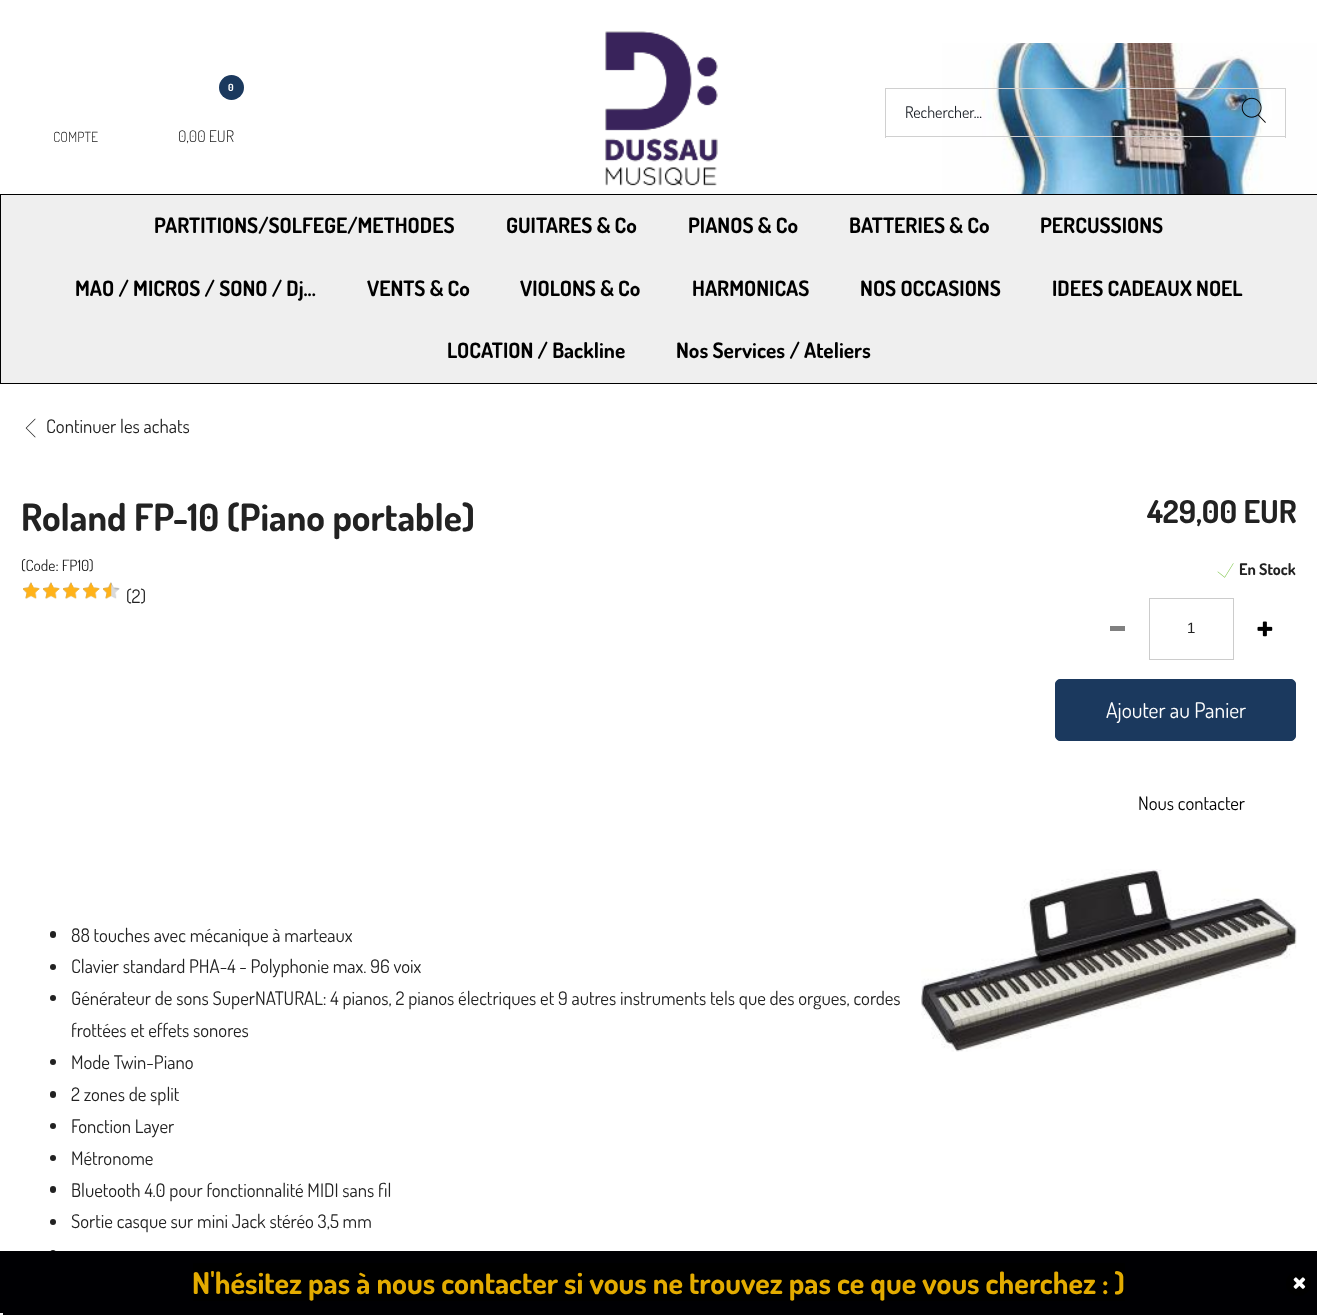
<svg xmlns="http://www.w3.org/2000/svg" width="1317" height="1315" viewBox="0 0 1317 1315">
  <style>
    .t1 { font: 300 14px Dosis; fill: #222; }
    .t2 { font: bold 10px Dosis; fill: #fff; }
    .t3 { font: 300 16px Dosis; fill: #222; }
    .t4 { font: 16px Dosis; fill: #1a1f26; }
    .t5 { font: bold 21.25px Dosis; fill: #000; }
    .t6 { font: 18.75px Dosis; fill: #222; }
    .t7 { font: bold 37.5px Dosis; fill: #222; }
    .t8 { font: 15.5px Dosis; fill: #222; }
    .t9 { font: bold 31.5px Dosis; fill: #222; }
    .t10 { font: bold 16px Dosis; fill: #222; }
    .t11 { font: 15px Liberation Sans; fill: #222; }
    .t12 { font: 21.5px Dosis; fill: #fff; }
    .t13 { font: 18.75px Dosis; fill: #000; }
    .t14 { font: bold 30px Dosis; fill: #e3ab00; }
  </style>
  <rect width="100%" height="100%" fill="#fff"/>
  <image x="942" y="43" width="375" height="151" href="images/1.png"/>
  <text x="53" y="142" class="t1">COMPTE</text>
  <circle cx="231.5" cy="87.5" r="12.5" fill="#1b395e"/>
  <text x="228" y="91" class="t2">0</text>
  <text x="178" y="142" class="t3">0,00 EUR</text>
  <image x="605" y="31" width="113" height="155" href="images/2.png"/>
  <rect x="885" y="88" width="401" height="1" fill="#d0d0d0"/>
  <rect x="885" y="136" width="338" height="1" fill="#d0d0d0"/>
  <rect x="885" y="88" width="1" height="50" fill="#d0d0d0"/>
  <text x="905" y="118" class="t4">Rechercher...</text>
  <rect x="1285" y="88" width="1" height="50" fill="#d0d0d0"/>
  <rect x="1223" y="136" width="63" height="1" fill="#d0d0d0"/>
  <image x="1241" y="97" width="25" height="26" href="images/3.png"/>
  <rect x="0.5" y="194.5" width="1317" height="189" fill="#efefef" stroke="#000"/>
  <text x="154" y="233" class="t5">PARTITIONS/SOLFEGE/METHODES</text>
  <text x="506" y="233" class="t5">GUITARES &amp; Co</text>
  <text x="688" y="233" class="t5">PIANOS &amp; Co</text>
  <text x="849" y="233" class="t5">BATTERIES &amp; Co</text>
  <text x="1040" y="233" class="t5">PERCUSSIONS</text>
  <text x="75" y="296" class="t5">MAO / MICROS / SONO / Dj...</text>
  <text x="367" y="296" class="t5">VENTS &amp; Co</text>
  <text x="520" y="296" class="t5">VIOLONS &amp; Co</text>
  <text x="692" y="296" class="t5">HARMONICAS</text>
  <text x="860" y="296" class="t5">NOS OCCASIONS</text>
  <text x="1052" y="296" class="t5">IDEES CADEAUX NOEL</text>
  <text x="447" y="358" class="t5">LOCATION / Backline</text>
  <text x="676" y="358" class="t5">Nos Services / Ateliers</text>
  <image x="25" y="418" width="11" height="20" href="images/4.png"/>
  <text x="46" y="433" class="t6">Continuer les achats</text>
  <text x="21" y="531" class="t7">Roland FP-10 (Piano portable)</text>
  <text x="21" y="571" class="t8">(Code: FP10)</text>
  <image x="23" y="582" width="97" height="17" href="images/5.png"/>
  <image x="23" y="582" width="89" height="17" href="images/6.png"/>
  <text x="126" y="603" class="t6">(2)</text>
  <text x="1147" y="523" class="t9">429,00 EUR</text>
  <image x="1217" y="563" width="17" height="15" href="images/7.png"/>
  <text x="1239" y="575" class="t10">En Stock</text>
  <rect x="1110" y="626" width="15" height="5" fill="#808080"/>
  <rect x="1149.5" y="598.5" width="84" height="61" fill="none" stroke="#ccc"/>
  <text x="1187" y="633" class="t11">1</text>
  <image x="1257" y="621" width="16" height="16" href="images/8.png"/>
  <rect x="1055.5" y="679.5" width="240" height="61" rx="4.5" fill="#1b395e" stroke="#1b395e"/>
  <text x="1106" y="718" class="t12">Ajouter au Panier</text>
  <text x="1138" y="810" class="t13">Nous contacter</text>
  <rect x="50" y="931" width="6" height="7" rx="3" fill="#222"/>
  <text x="71" y="942" class="t6">88 touches avec mécanique à marteaux</text>
  <circle cx="53" cy="967" r="3" fill="#222"/>
  <text x="71" y="973" class="t6">Clavier standard PHA-4 - Polyphonie max. 96 voix</text>
  <circle cx="53" cy="998" r="3" fill="#222"/>
  <text x="71" y="1005" class="t6">Générateur de sons SuperNATURAL: 4 pianos, 2 pianos électriques et 9 autres instruments tels que des orgues, cordes</text>
  <text x="71" y="1037" class="t6">frottées et effets sonores</text>
  <circle cx="53" cy="1062" r="3" fill="#222"/>
  <text x="71" y="1069" class="t6">Mode Twin-Piano</text>
  <rect x="50" y="1091" width="6" height="7" rx="3" fill="#222"/>
  <text x="71" y="1101" class="t6">2 zones de split</text>
  <circle cx="53" cy="1126" r="3" fill="#222"/>
  <text x="71" y="1133" class="t6">Fonction Layer</text>
  <circle cx="53" cy="1158" r="3" fill="#222"/>
  <text x="71" y="1165" class="t6">Métronome</text>
  <rect x="50" y="1186" width="6" height="7" rx="3" fill="#222"/>
  <text x="71" y="1197" class="t6">Bluetooth 4.0 pour fonctionnalité MIDI sans fil</text>
  <circle cx="53" cy="1222" r="3" fill="#222"/>
  <text x="71" y="1228" class="t6">Sortie casque sur mini Jack stéréo 3,5 mm</text>
  <circle cx="53" cy="1253" r="3" fill="#222"/>
  <image x="921" y="869" width="376" height="183" href="images/9.png"/>
  <rect x="0" y="1251" width="1317" height="64" fill="#000003"/>
  <rect x="193" y="1263" width="932" height="38" fill="#000"/>
  <text x="192" y="1294" class="t14">N'hésitez pas à nous contacter si vous ne trouvez pas ce que vous cherchez : )</text>
  <circle cx="1298.5" cy="1283.5" r="12.5" fill="#000"/>
  <image x="1293" y="1277" width="13" height="12" href="images/10.png"/>
  <rect x="0" y="1313" width="3" height="2" fill="#f5f5f5"/>
</svg>
